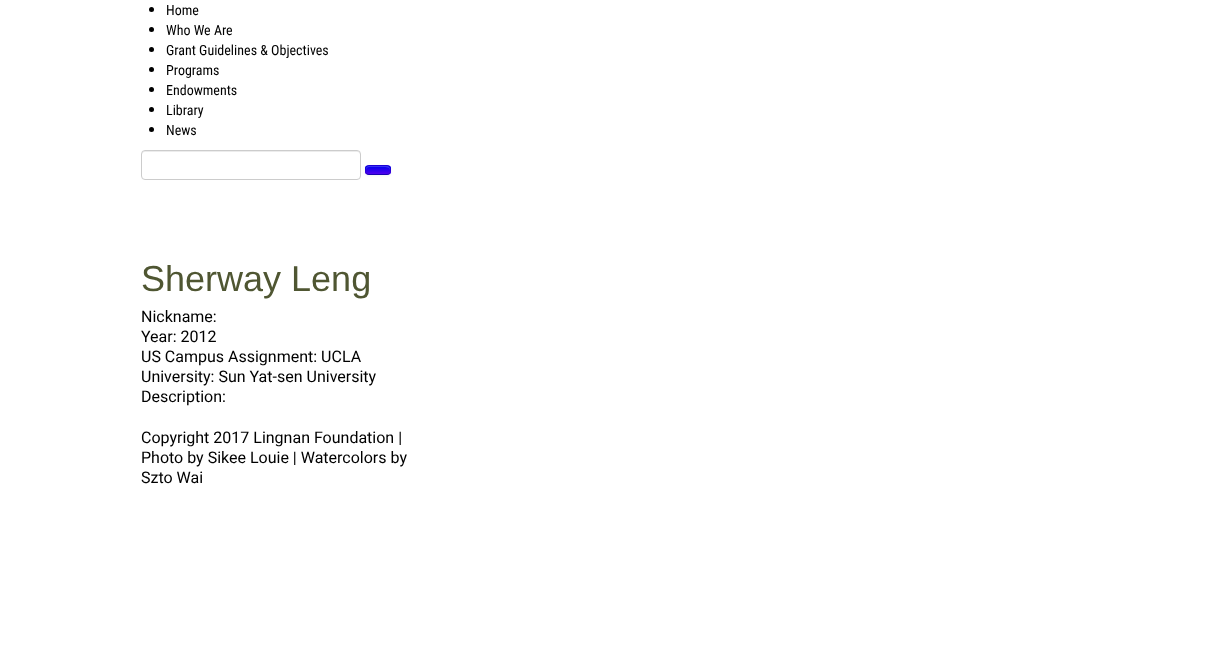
<svg xmlns="http://www.w3.org/2000/svg" width="1222" height="657" viewBox="0 0 1222 657">
  <style>
    .t1 { font: 14px Roboto Condensed; fill: #000; }
    .t2 { font: 36px Liberation Sans; fill: #4f5632; }
    .t3 { font: 16px Roboto; fill: #000; }
  </style>
  <defs>
    <clipPath id="clip1"><rect x="365" y="165" width="26" height="10" rx="4"/></clipPath>
    <linearGradient id="g1" gradientUnits="userSpaceOnUse" x1="378" y1="166" x2="378" y2="174"><stop offset="0" stop-color="#00e"/><stop offset="1" stop-color="#4f00ee"/></linearGradient>
  </defs>
  <rect width="100%" height="100%" fill="#fff"/>
  <circle cx="151.5" cy="9.5" r="2.5" fill="#000"/>
  <text x="166" y="15" class="t1">Home</text>
  <circle cx="151.5" cy="29.5" r="2.5" fill="#000"/>
  <text x="166" y="35" class="t1">Who We Are</text>
  <circle cx="151.5" cy="49.5" r="2.5" fill="#000"/>
  <text x="166" y="55" class="t1">Grant Guidelines &amp; Objectives</text>
  <circle cx="151.5" cy="69.5" r="2.5" fill="#000"/>
  <text x="166" y="75" class="t1">Programs</text>
  <circle cx="151.5" cy="89.5" r="2.5" fill="#000"/>
  <text x="166" y="95" class="t1">Endowments</text>
  <circle cx="151.5" cy="109.5" r="2.5" fill="#000"/>
  <text x="166" y="115" class="t1">Library</text>
  <circle cx="151.5" cy="129.5" r="2.5" fill="#000"/>
  <text x="166" y="135" class="t1">News</text>
  <path d="M145 152H357C359 152 360 153 360 155V154C360 152 359 151 357 151H145C143 151 142 152 142 154V155C142 153 143 152 145 152Z" fill="#ececec"/>
  <rect x="141.5" y="150.5" width="219" height="29" rx="3.5" fill="none" stroke="#ccc"/>
  <rect x="365" y="166" width="26" height="10" rx="4" fill="#0000000d" filter="blur(1px)"/>
  <rect x="365" y="165" width="26" height="10" rx="4" fill="#2000ee"/>
  <g clip-path="url(#clip1)">
    <rect x="365" y="166" width="26" height="8" fill="url(#g1)"/>
  </g>
  <path d="M369 167H382.5C386 167 389.5 167 390 170C390 165.5 387.5 166 384 166H372C369 166 366 165.5 366 169.5C366.5 168 367.5 167 369 167Z" fill="#ffffff33"/>
  <path d="M389.5 173.5C389 174 388 174.5 387 174.5H369C368 174.5 367 174 366.5 173.5" fill="none" stroke="#00000040"/>
  <path d="M366.5 173.5C365.5 172.5 365.5 171.5 365.5 170C365.5 165.5 368 165.5 372 165.5H384C388 165.5 390.5 165.5 390.5 170C390.5 171.5 390.5 172.5 389.5 173.5" fill="none" stroke="#0000001a"/>
  <text x="141" y="291" class="t2">Sherway Leng</text>
  <text x="141" y="322" class="t3">Nickname:</text>
  <text x="141" y="342" class="t3">Year: 2012</text>
  <text x="141" y="362" class="t3">US Campus Assignment: UCLA</text>
  <text x="141" y="382" class="t3">University: Sun Yat-sen University</text>
  <text x="141" y="402" class="t3">Description:</text>
  <text x="141" y="443" class="t3">Copyright 2017 Lingnan Foundation |</text>
  <text x="141" y="463" class="t3">Photo by Sikee Louie | Watercolors by</text>
  <text x="141" y="483" class="t3">Szto Wai</text>
</svg>
